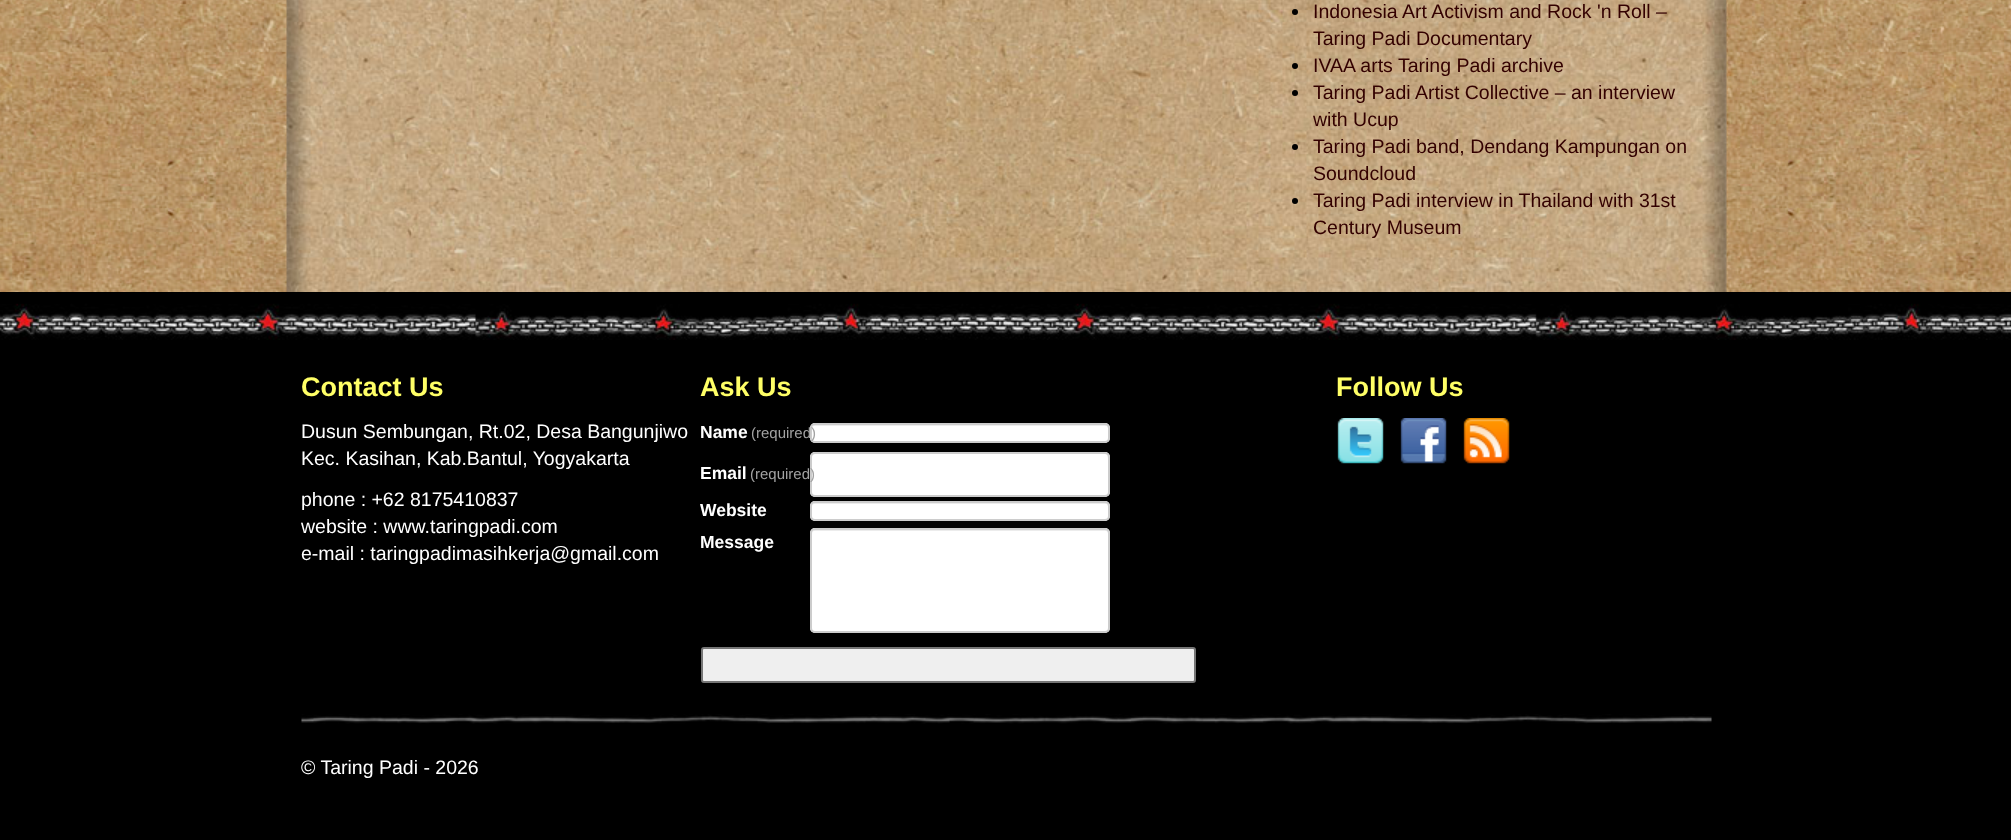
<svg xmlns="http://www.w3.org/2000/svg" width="2011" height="840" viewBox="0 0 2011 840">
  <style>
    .t1 { font: 19.5px Liberation Sans; fill: #300; }
    .t2 { font: bold 27px Liberation Sans; fill: #ff6; }
    .t3 { font: 19.5px Liberation Sans; fill: #fff; }
    .t4 { font: bold 17.5px Liberation Sans; fill: #fff; }
    .t5 { font: 15px Liberation Sans; fill: #a2a2a2; }
  </style>
  <rect width="100%" height="100%" fill="#fff"/>
  <image x="0" y="0" width="2011" height="292" href="images/1.png"/>
  <image x="286" y="0" width="1441" height="292" href="images/2.png"/>
  <circle cx="1295" cy="12" r="3" fill="#000"/>
  <text x="1313" y="18" class="t1">Indonesia Art Activism and Rock 'n Roll –</text>
  <text x="1313" y="45" class="t1">Taring Padi Documentary</text>
  <circle cx="1295" cy="66" r="3" fill="#000"/>
  <text x="1313" y="72" class="t1">IVAA arts Taring Padi archive</text>
  <circle cx="1295" cy="93" r="3" fill="#000"/>
  <text x="1313" y="99" class="t1">Taring Padi Artist Collective – an interview</text>
  <text x="1313" y="126" class="t1">with Ucup</text>
  <circle cx="1295" cy="147" r="3" fill="#000"/>
  <text x="1313" y="153" class="t1">Taring Padi band, Dendang Kampungan on</text>
  <text x="1313" y="180" class="t1">Soundcloud</text>
  <circle cx="1295" cy="201" r="3" fill="#000"/>
  <text x="1313" y="207" class="t1">Taring Padi interview in Thailand with 31st</text>
  <text x="1313" y="234" class="t1">Century Museum</text>
  <rect x="0" y="340" width="2011" height="500" fill="#000"/>
  <image x="0" y="292" width="2011" height="48" href="images/3.png"/>
  <text x="301" y="396" class="t2">Contact Us</text>
  <text x="301" y="438" class="t3">Dusun Sembungan, Rt.02, Desa Bangunjiwo</text>
  <text x="301" y="465" class="t3">Kec. Kasihan, Kab.Bantul, Yogyakarta</text>
  <text x="301" y="506" class="t3">phone : +62 8175410837</text>
  <text x="301" y="533" class="t3">website : www.taringpadi.com</text>
  <text x="301" y="560" class="t3">e-mail : taringpadimasihkerja@gmail.com</text>
  <text x="700" y="396" class="t2">Ask Us</text>
  <text x="700" y="438" class="t4">Name</text>
  <rect x="810" y="423" width="300" height="20" rx="5" fill="#fff"/>
  <path d="M814 426H1106C1109 426 1108 433 1108 434V440C1109 440 1109 439 1109 438V428C1109 426 1108 425 1106 425H815C813 425 812 426 812 428V429C812 427 813 426 814 426Z" fill="#ececec"/>
  <rect x="811" y="424" width="298" height="18" rx="4" fill="none" stroke="#ccc" stroke-width="2"/>
  <text x="751" y="438" class="t5">(required)</text>
  <text x="700" y="479" class="t4">Email</text>
  <rect x="810" y="452" width="300" height="45" rx="5" fill="#fff"/>
  <path d="M814 454H1106C1109 454 1108 469 1108 470V494C1109 494 1109 493 1109 492V456C1109 454 1108 453 1106 453H815C813 453 812 454 812 456V458C812 456 813 454 814 454Z" fill="#ececec"/>
  <rect x="811" y="453" width="298" height="43" rx="4" fill="none" stroke="#ccc" stroke-width="2"/>
  <text x="750" y="479" class="t5">(required)</text>
  <text x="700" y="516" class="t4">Website</text>
  <rect x="810" y="501" width="300" height="20" rx="5" fill="#fff"/>
  <path d="M814 504H1106C1109 504 1108 511 1108 512V518C1109 518 1109 517 1109 516V506C1109 504 1108 503 1106 503H815C813 503 812 504 812 506V507C812 505 813 504 814 504Z" fill="#ececec"/>
  <rect x="811" y="502" width="298" height="18" rx="4" fill="none" stroke="#ccc" stroke-width="2"/>
  <text x="700" y="548" class="t4">Message</text>
  <rect x="810" y="528" width="300" height="105" rx="5" fill="#fff"/>
  <path d="M814 531H1106C1107 531 1108 532 1108 534V631C1109 631 1109 630 1109 629V533C1109 531 1108 530 1106 530H815C813 530 812 531 812 533V534C812 532 813 531 814 531Z" fill="#ececec"/>
  <rect x="811" y="529" width="298" height="103" rx="4" fill="none" stroke="#ccc" stroke-width="2"/>
  <rect x="702" y="648" width="493" height="34" rx="2" fill="#efefef" stroke="#767676" stroke-width="2"/>
  <text x="1336" y="396" class="t2">Follow Us</text>
  <image x="1337" y="418" width="47" height="46" href="images/4.png"/>
  <image x="1400" y="418" width="47" height="46" href="images/5.png"/>
  <image x="1463" y="418" width="47" height="46" href="images/6.png"/>
  <image x="301" y="714" width="1411" height="10" href="images/7.png"/>
  <text x="301" y="774" class="t3">© Taring Padi - 2026</text>
</svg>
